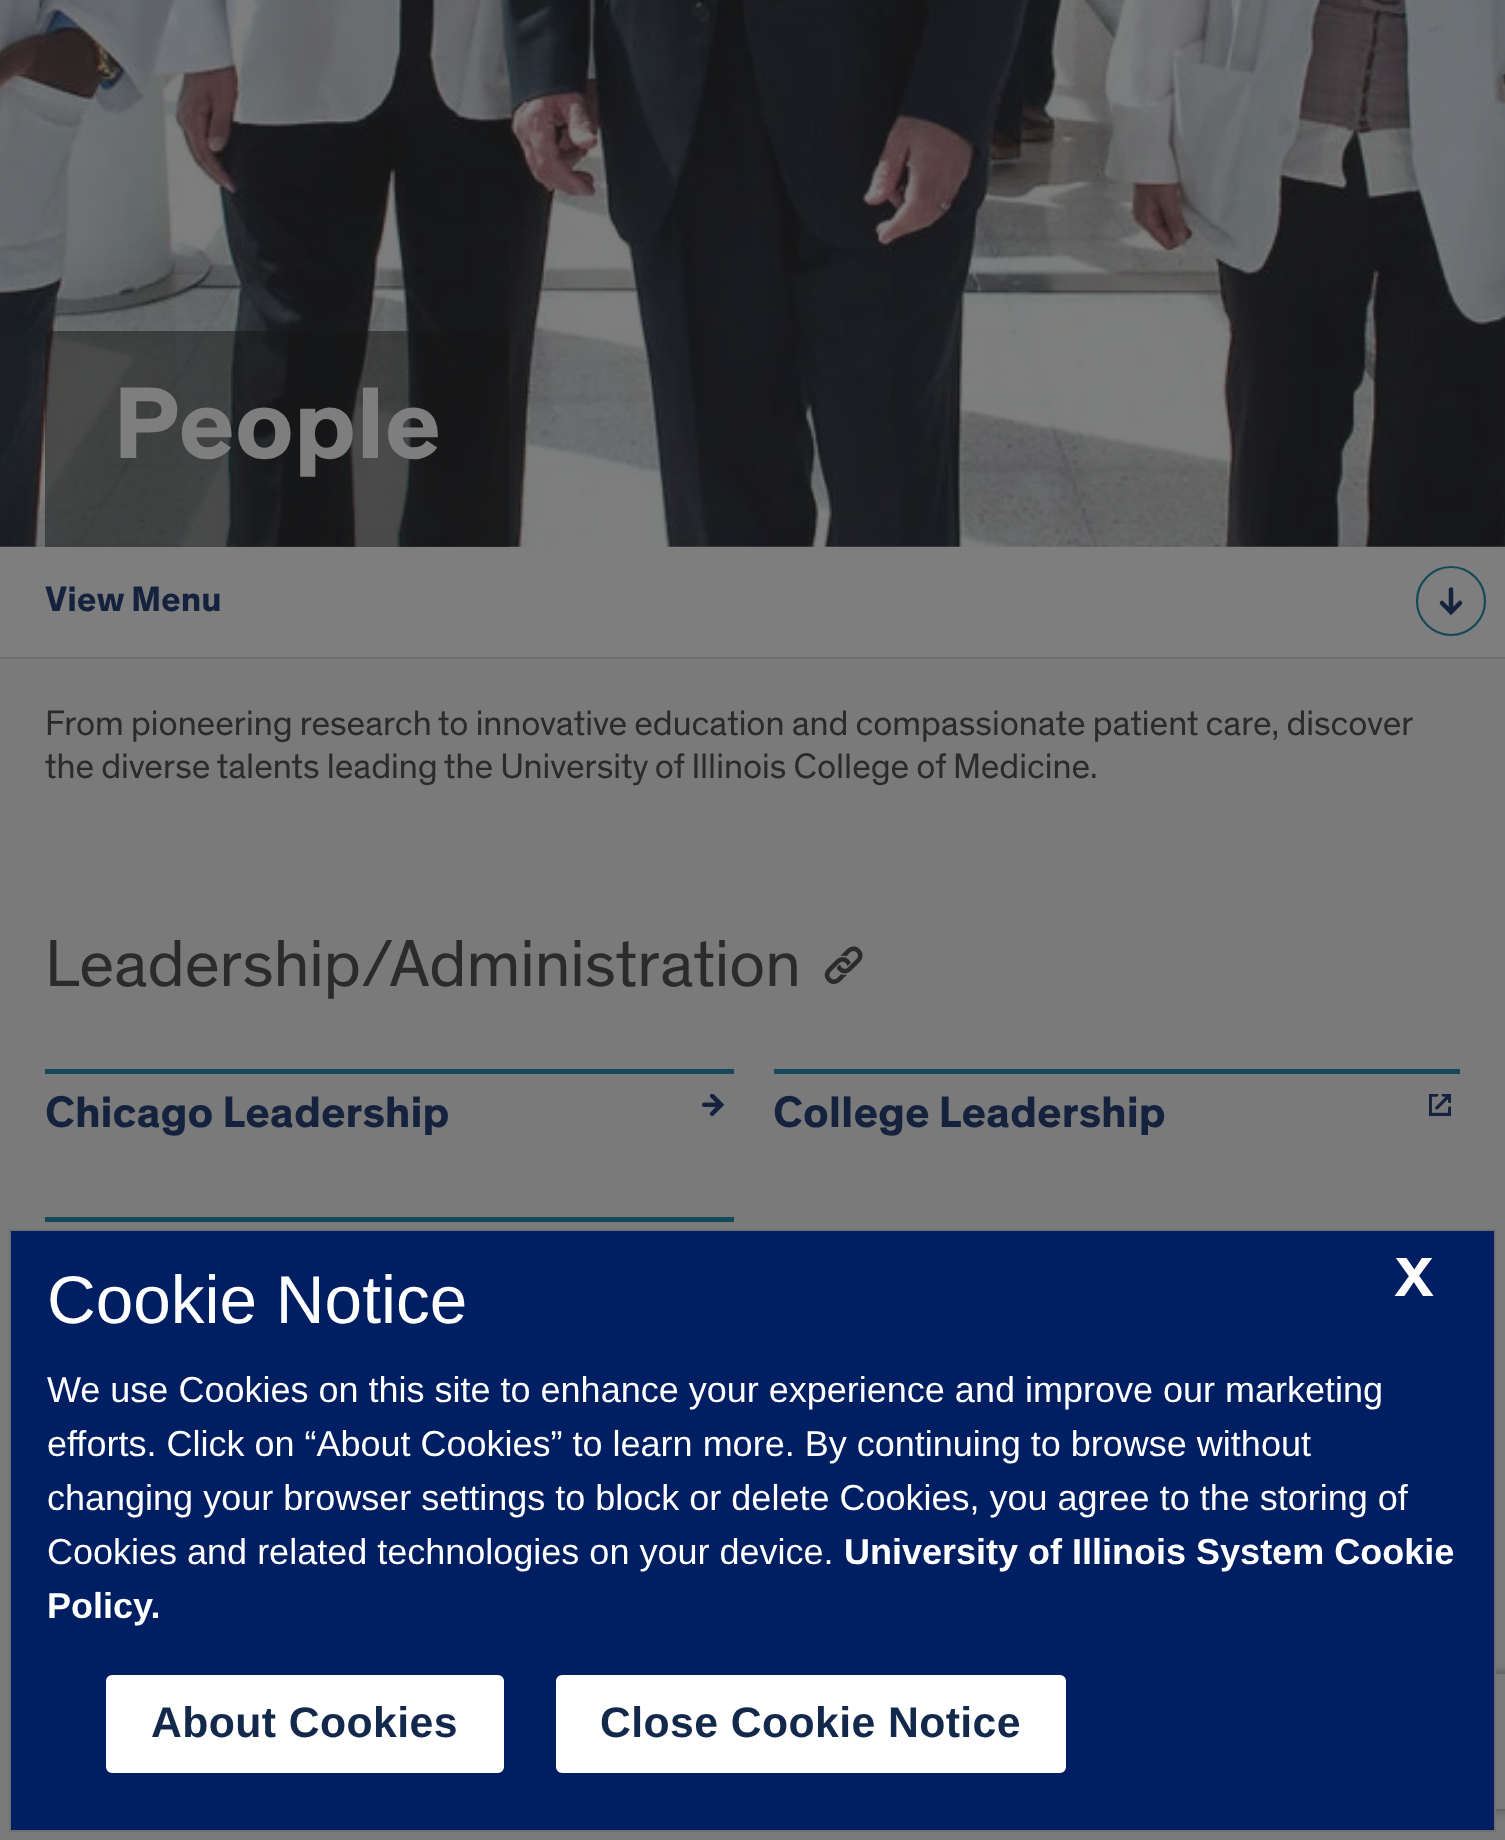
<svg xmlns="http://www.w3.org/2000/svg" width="1505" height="1840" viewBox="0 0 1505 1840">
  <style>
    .t1 { font: bold 103.5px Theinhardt; fill: #7e7e7e; }
    .t2 { font: bold 36px Theinhardt; fill: #15223d; }
    .t3 { font: 36px Theinhardt; fill: #2b2b2b; }
    .t4 { font: 67.5px Theinhardt; fill: #2b2b2b; }
    .t5 { font: bold 45px Theinhardt; fill: #15223d; }
    .t6 { font: 67.5px Liberation Sans; fill: #fff; }
    .t7 { font: bold 56px Theinhardt; fill: #fff; }
    .t8 { font: 36px Liberation Sans; fill: #fff; }
    .t9 { font: bold 36px Liberation Sans; fill: #fff; }
    .t10 { font: bold 42.75px Liberation Sans; letter-spacing: 0.4px; fill: #13294b; }
  </style>
  <defs>
    <clipPath id="clip1"><path d="M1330 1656H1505V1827H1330ZM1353 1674H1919C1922 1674 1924 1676 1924 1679V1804C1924 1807 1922 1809 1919 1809H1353C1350 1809 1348 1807 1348 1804V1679C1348 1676 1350 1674 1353 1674Z" clip-rule="evenodd"/></clipPath>
  </defs>
  <rect width="100%" height="100%" fill="#7a7a7a"/>
  <image x="0" y="0" width="1505" height="547" href="images/1.png"/>
  <rect x="45" y="331" width="464" height="216" fill="#15151580"/>
  <text x="113" y="458" class="t1">People</text>
  <rect x="0" y="547" width="1505" height="110" fill="#7e7e7e"/>
  <rect x="0" y="657" width="1505" height="2" fill="#6e6e6e"/>
  <text x="45" y="611" class="t2">View Menu</text>
  <circle cx="1451" cy="601" r="34" fill="none" stroke="#154959" stroke-width="2.2"/>
  <path d="M1442 603L1451 612L1460 603M1451 610V589.5" fill="none" stroke="#15223d" stroke-width="4.5" stroke-linecap="round"/>
  <text x="45" y="735" class="t3">From pioneering research to innovative education and compassionate patient care, discover</text>
  <text x="45" y="778" class="t3">the diverse talents leading the University of Illinois College of Medicine.</text>
  <text x="45" y="986" class="t4">Leadership/Administration</text>
  <image x="824" y="946" width="39" height="39" href="images/2.png"/>
  <rect x="45" y="1069" width="689" height="5" fill="#154959"/>
  <text x="45" y="1127" class="t5">Chicago Leadership</text>
  <image x="702" y="1094" width="23" height="22" href="images/3.png"/>
  <rect x="774" y="1069" width="686" height="5" fill="#154959"/>
  <text x="773" y="1127" class="t5">College Leadership</text>
  <image x="1429" y="1094" width="22" height="22" href="images/4.png"/>
  <rect x="45" y="1217" width="689" height="5" fill="#154959"/>
  <g clip-path="url(#clip1)">
    <rect x="1348" y="1674" width="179" height="135" rx="5" fill="#4a4a4a" filter="blur(5.5px)"/>
  </g>
  <rect x="10" y="1230" width="1485" height="601" fill="#001e62" stroke="#707070" stroke-width="2"/>
  <text x="47" y="1323" class="t6">Cookie Notice</text>
  <text x="1395" y="1296" class="t7">X</text>
  <text x="47" y="1402" class="t8">We use Cookies on this site to enhance your experience and improve our marketing</text>
  <text x="47" y="1456" class="t8">efforts. Click on “About Cookies” to learn more. By continuing to browse without</text>
  <text x="47" y="1510" class="t8">changing your browser settings to block or delete Cookies, you agree to the storing of</text>
  <text x="47" y="1564" class="t8">Cookies and related technologies on your device.</text>
  <text x="844" y="1564" class="t9">University of Illinois System Cookie</text>
  <text x="47" y="1618" class="t9">Policy.</text>
  <rect x="103.5" y="1672.5" width="403" height="103" rx="8.5" fill="#fff" stroke="#001e62" stroke-width="5"/>
  <text x="151" y="1737" class="t10">About Cookies</text>
  <rect x="553.5" y="1672.5" width="515" height="103" rx="8.5" fill="#fff" stroke="#001e62" stroke-width="5"/>
  <text x="600" y="1737" class="t10">Close Cookie Notice</text>
</svg>
